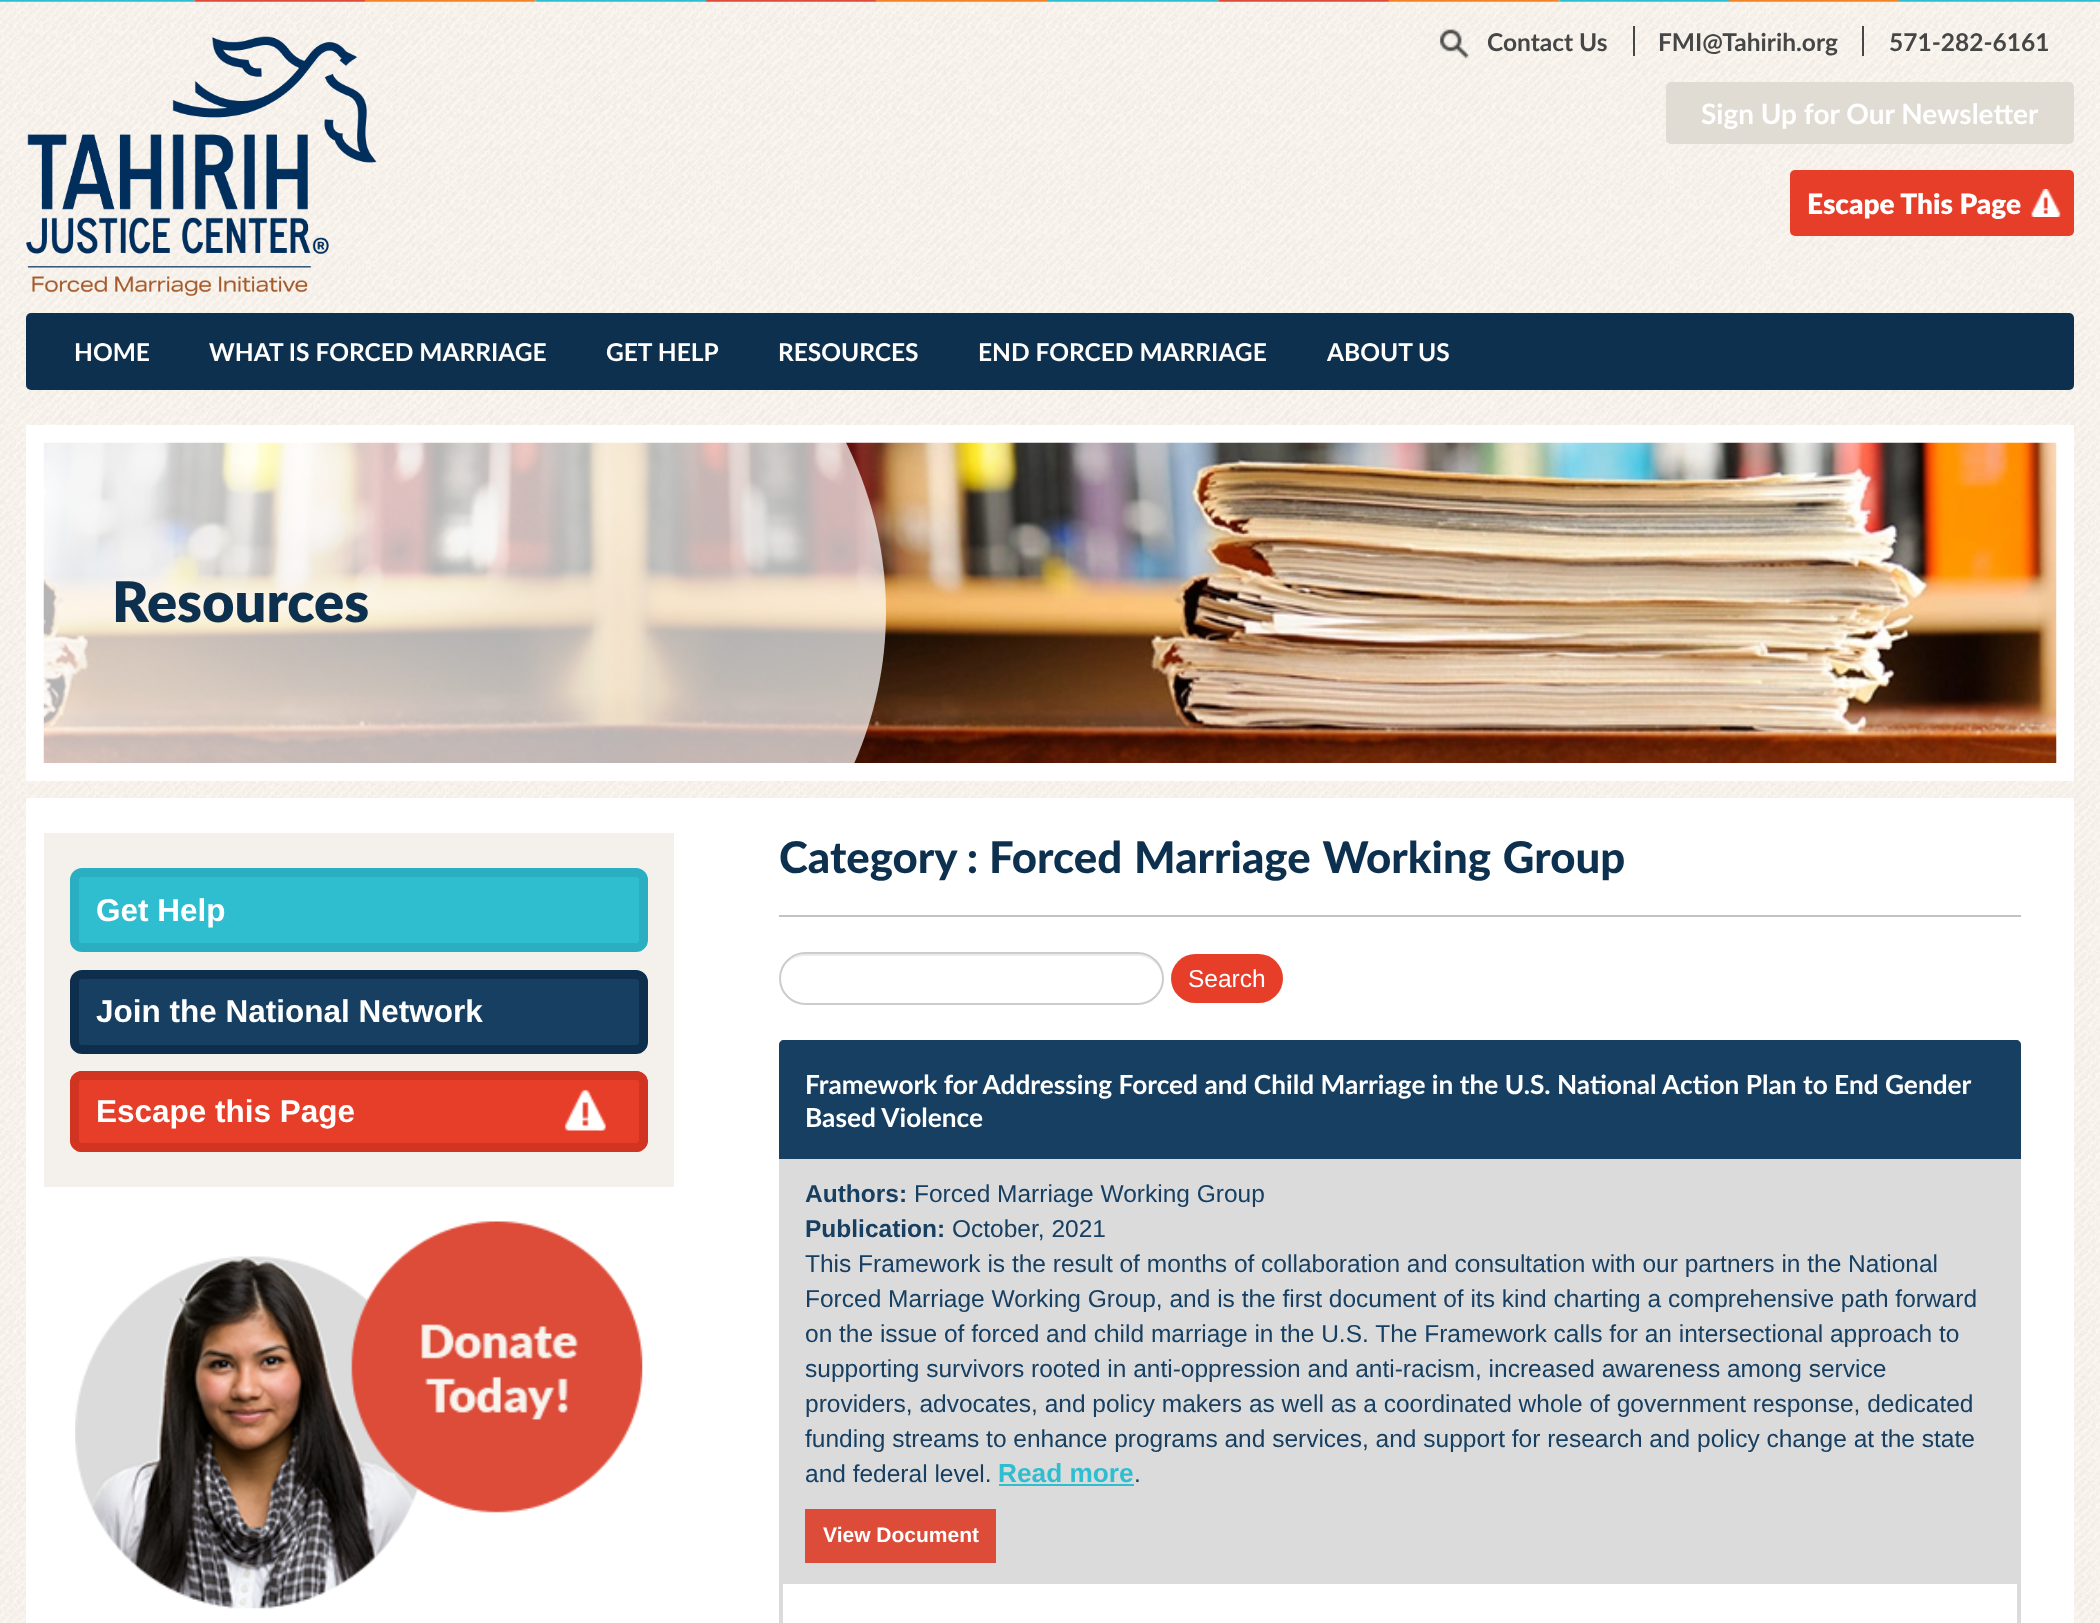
<svg xmlns="http://www.w3.org/2000/svg" width="2100" height="1623" viewBox="0 0 2100 1623">
  <style>
    .t1 { font: bold 24.5px Lato; fill: #464646; }
    .t2 { font: bold 28px Lato; fill: #fff; }
    .t3 { font: 900 28px Lato; fill: #fff; }
    .t4 { font: bold 24.5px Lato; fill: #fff; }
    .t5 { font: 900 56px Lato; fill: #0d304e; }
    .t6 { font: bold 31.5px Liberation Sans; fill: #fff; }
    .t7 { font: 900 43.75px 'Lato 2'; fill: #0d304e; }
    .t8 { font: 24.5px Liberation Sans; fill: #fff; }
    .t9 { font: bold 26.25px Lato; fill: #fff; }
    .t10 { font: bold 24.5px Liberation Sans; fill: #163f62; }
    .t11 { font: 24.5px Liberation Sans; fill: #163f62; }
    .t12 { font: bold 26.25px Liberation Sans; fill: #2fbdd0; }
    .t13 { font: bold 21px Liberation Sans; fill: #fff; }
  </style>
  <defs>
    <clipPath id="clip1"><rect x="26" y="425" width="860" height="356"/></clipPath>
  </defs>
  <rect width="100%" height="100%" fill="#fff"/>
  <image x="0" y="0" width="2100" height="1623" href="images/1.png"/>
  <image x="0" y="0" width="2100" height="2" href="images/2.png"/>
  <image x="26" y="36" width="351" height="260" href="images/3.png"/>
  <image x="1440" y="29" width="29" height="30" href="images/4.png"/>
  <text x="1487" y="51" class="t1">Contact Us</text>
  <rect x="1633" y="26" width="2" height="30" fill="#464646"/>
  <text x="1658" y="51" class="t1">FMI@Tahirih.org</text>
  <rect x="1862" y="26" width="2" height="30" fill="#464646"/>
  <text x="1889" y="51" class="t1">571-282-6161</text>
  <rect x="1666" y="82" width="408" height="62" rx="5" fill="#e0dbd3"/>
  <text x="1701" y="124" class="t2">Sign Up for Our Newsletter</text>
  <rect x="1790" y="170" width="284" height="66" rx="5" fill="#e73e2a"/>
  <image x="2031" y="189" width="30" height="28" href="images/5.png"/>
  <text x="1807" y="214" class="t3">Escape This Page</text>
  <rect x="26" y="313" width="2048" height="77" rx="5" fill="#0d304e"/>
  <text x="74" y="361" class="t4">HOME</text>
  <text x="209" y="361" class="t4">WHAT IS FORCED MARRIAGE</text>
  <text x="606" y="361" class="t4">GET HELP</text>
  <text x="778" y="361" class="t4">RESOURCES</text>
  <text x="978" y="361" class="t4">END FORCED MARRIAGE</text>
  <text x="1327" y="361" class="t4">ABOUT US</text>
  <rect x="26" y="425" width="2048" height="356" fill="#fff"/>
  <image x="43" y="442" width="2014" height="321" href="images/6.png"/>
  <g clip-path="url(#clip1)">
    <path d="M26 210H456C693 210 886 390 886 612C886 833 693 1013 456 1013H26Z" fill="#ffffffb3"/>
  </g>
  <text x="112" y="622" class="t5">Resources</text>
  <rect x="26" y="798" width="2048" height="825" fill="#fff"/>
  <rect x="44" y="833" width="630" height="354" fill="#f4f1ec"/>
  <rect x="74.5" y="872.5" width="569" height="75" rx="7.5" fill="#2fbdd0" stroke="#29afc1" stroke-width="9"/>
  <text x="96" y="921" class="t6">Get Help</text>
  <rect x="74.5" y="974.5" width="569" height="75" rx="7.5" fill="#163f62" stroke="#0d2f4d" stroke-width="9"/>
  <text x="96" y="1022" class="t6">Join the National Network</text>
  <rect x="70" y="1071" width="578" height="81" rx="12" fill="#e73e2a"/>
  <image x="564" y="1089" width="42" height="42" href="images/7.png"/>
  <rect x="74.5" y="1075.5" width="569" height="72" rx="7.5" fill="none" stroke="#d13421" stroke-width="9"/>
  <text x="96" y="1122" class="t6">Escape this Page</text>
  <image x="75" y="1221" width="568" height="388" href="images/8.png"/>
  <rect x="779" y="915" width="1242" height="2" fill="#c2c2c2"/>
  <text x="779" y="873" class="t7">Category :</text>
  <text x="989" y="873" word-spacing="1.5" class="t7">Forced Marriage Working Group</text>
  <path d="M805 956H1138C1151 956 1162 966 1162 979V978C1162 965 1151 954 1138 954H806C797 954 789 959 785 966C789 960 796 956 805 956Z" fill="#ececec"/>
  <rect x="780" y="953" width="383" height="51" rx="25.5" fill="none" stroke="#ccc" stroke-width="2"/>
  <rect x="1171" y="954" width="112" height="49" rx="24.5" fill="#e73e2a"/>
  <text x="1188" y="987" class="t8">Search</text>
  <path d="M784 1040H2016C2019 1040 2021 1042 2021 1045V1580H779V1045C779 1042 781 1040 784 1040Z" fill="#dbdbdb"/>
  <path d="M784 1040H2016C2019 1040 2021 1042 2021 1045V1159H779V1045C779 1042 781 1040 784 1040Z" fill="#163f62"/>
  <text x="805" y="1094" class="t9">Framework for Addressing Forced and Child Marriage in the U.S. National Action Plan to End Gender</text>
  <text x="805" y="1127" class="t9">Based Violence</text>
  <text x="805" y="1202" class="t10">Authors:</text>
  <text x="914" y="1202" class="t11">Forced Marriage Working Group</text>
  <text x="805" y="1237" class="t10">Publication:</text>
  <text x="952" y="1237" class="t11">October, 2021</text>
  <text x="805" y="1272" class="t11">This Framework is the result of months of collaboration and consultation with our partners in the National</text>
  <text x="805" y="1307" class="t11">Forced Marriage Working Group, and is the first document of its kind charting a comprehensive path forward</text>
  <text x="805" y="1342" class="t11">on the issue of forced and child marriage in the U.S. The Framework calls for an intersectional approach to</text>
  <text x="805" y="1377" class="t11">supporting survivors rooted in anti-oppression and anti-racism, increased awareness among service</text>
  <text x="805" y="1412" class="t11">providers, advocates, and policy makers as well as a coordinated whole of government response, dedicated</text>
  <text x="805" y="1447" class="t11">funding streams to enhance programs and services, and support for research and policy change at the state</text>
  <text x="805" y="1482" class="t11">and federal level.</text>
  <text x="998" y="1482" class="t12">Read more</text>
  <rect x="999" y="1484" width="135" height="2" fill="#2fbdd0"/>
  <text x="1134" y="1482" class="t11">.</text>
  <rect x="805" y="1509" width="191" height="54" fill="#dd4b39"/>
  <text x="823" y="1542" class="t13">View Document</text>
  <rect x="781" y="1582" width="1238" height="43" fill="none" stroke="#dbdbdb" stroke-width="4"/>
</svg>
